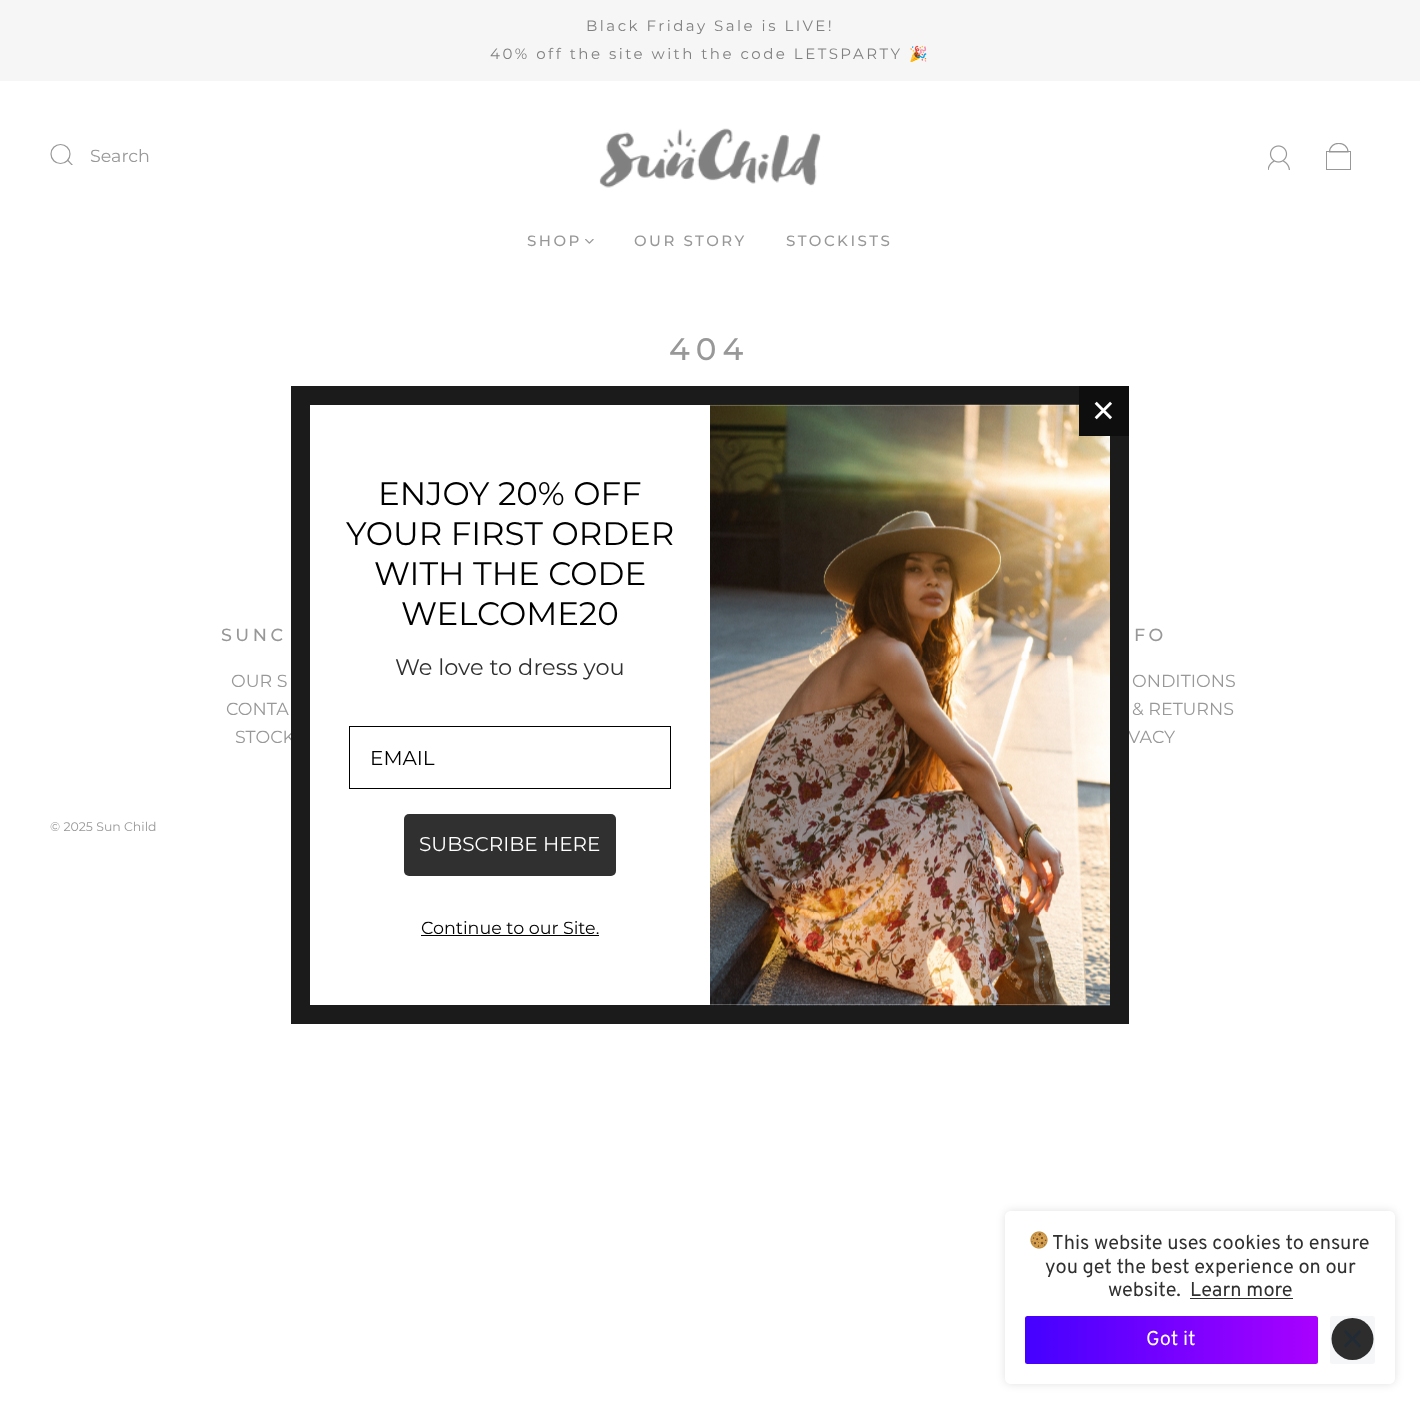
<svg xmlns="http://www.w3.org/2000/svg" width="1420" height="1408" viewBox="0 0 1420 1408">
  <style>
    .t1 { font: 15px Montserrat; letter-spacing: 2.5px; fill: #818181; }
    .t2 { font: 15px Noto Color Emoji; letter-spacing: 2.5px; fill: #818181; }
    .t3 { font: 17.5px Montserrat; fill: #989898; }
    .t4 { font: 500 15px Montserrat; letter-spacing: 2.5px; fill: #989898; }
    .t5 { font: 500 31px Montserrat; letter-spacing: 6px; fill: #989898; }
    .t6 { font: 50px Montserrat; fill: #fff; }
    .t7 { font: 32.5px Montserrat; fill: #000; }
    .t8 { font: 22.5px Montserrat; fill: #303030; }
    .t9 { font: 20px Montserrat; fill: #000; }
    .t10 { font: 20px Montserrat; fill: #fff; }
    .t11 { font: 17.5px Montserrat; fill: #000; }
    .t12 { font: 500 17.5px Montserrat; letter-spacing: 3.5px; fill: #989898; }
    .t13 { font: 12.5px Montserrat; fill: #989898; }
    .t14 { font: 20px Overpass; fill: #303030; }
    .t15 { font: 20px Overpass; fill: #fff; }
  </style>
  <defs>
    <clipPath id="clip1"><rect x="50" y="144" width="23" height="21"/></clipPath>
    <clipPath id="clip2"><rect x="1326" y="143" width="27" height="27"/></clipPath>
    <clipPath id="clip3"><path d="M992 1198H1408V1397H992ZM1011 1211H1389C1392.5 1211 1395 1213.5 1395 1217V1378C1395 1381.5 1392.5 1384 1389 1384H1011C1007.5 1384 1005 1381.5 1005 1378V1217C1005 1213.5 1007.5 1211 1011 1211Z" clip-rule="evenodd"/></clipPath>
    <linearGradient id="g1" gradientUnits="userSpaceOnUse" x1="1025" y1="1340" x2="1318" y2="1340"><stop offset="0" stop-color="#4401ff"/><stop offset="1" stop-color="#a901ff"/></linearGradient>
  </defs>
  <rect width="100%" height="100%" fill="#fff"/>
  <rect x="0" y="0" width="1420" height="81" fill="#f6f6f6"/>
  <text x="586" y="31" class="t1">Black Friday Sale is LIVE!</text>
  <text x="490" y="59" class="t1">40% off the site with the code LETSPARTY</text>
  <text x="909" y="59" class="t2">🎉</text>
  <circle cx="60.5" cy="154" r="9.5" fill="none" stroke="#989898" stroke-width="1.2"/>
  <g clip-path="url(#clip1)">
    <path d="M67.5 160L74 167" fill="none" stroke="#989898" stroke-width="1.2"/>
  </g>
  <text x="90" y="162" class="t3">Search</text>
  <image x="599" y="128" width="222" height="60" href="images/1.png"/>
  <image x="1268" y="145" width="22" height="25" href="images/2.png"/>
  <g clip-path="url(#clip2)">
    <path d="M1329.5 152C1330 140.5 1347.5 140.5 1348 152Z" fill="none" stroke="#989898" stroke-width="1.2"/>
  </g>
  <rect x="1326.5" y="151.5" width="24" height="18" fill="none" stroke="#989898"/>
  <text x="527" y="246" class="t4">SHOP</text>
  <image x="585" y="239" width="9" height="5" href="images/3.png"/>
  <text x="634" y="246" class="t4">OUR STORY</text>
  <text x="786" y="246" class="t4">STOCKISTS</text>
  <text x="669" y="360" class="t5">404</text>
  <text x="235" y="743" class="t3">STOCK</text>
  <text x="1128" y="743" class="t3">VACY</text>
  <rect x="291" y="386" width="838" height="638" fill="#1b1b1b"/>
  <rect x="310" y="405" width="800" height="600" fill="#fff"/>
  <image x="710" y="404" width="400" height="602" href="images/4.png"/>
  <rect x="1079" y="386" width="50" height="50" fill="#0e0e0e"/>
  <text x="1089" y="428" class="t6">×</text>
  <text x="378" y="505" class="t7">ENJOY 20% OFF</text>
  <text x="346" y="545" class="t7">YOUR FIRST ORDER</text>
  <text x="374" y="585" class="t7">WITH THE CODE</text>
  <text x="401" y="625" class="t7">WELCOME20</text>
  <text x="395" y="675" class="t8">We love to dress you</text>
  <rect x="349.5" y="726.5" width="321" height="62" fill="none" stroke="#000"/>
  <text x="370" y="765" class="t9">EMAIL</text>
  <rect x="404" y="814" width="212" height="62" rx="5" fill="#303030"/>
  <text x="419" y="851" class="t10">SUBSCRIBE HERE</text>
  <text x="421" y="934" class="t11">Continue to our Site.</text>
  <rect x="421" y="935" width="178" height="1" fill="#000"/>
  <text x="221" y="641" class="t12">SUNC</text>
  <text x="231" y="687" class="t3">OUR S</text>
  <text x="226" y="715" class="t3">CONTA</text>
  <text x="1134" y="641" class="t12">FO</text>
  <text x="1132" y="687" class="t3">ONDITIONS</text>
  <text x="1132" y="715" class="t3">&amp; RETURNS</text>
  <text x="50" y="831" class="t13">© 2025 Sun Child</text>
  <g clip-path="url(#clip3)">
    <rect x="1005" y="1211" width="390" height="173" rx="6" fill="#0000001f" filter="blur(4px)"/>
  </g>
  <image x="1030" y="1231" width="18" height="18" href="images/5.png"/>
  <text x="1052" y="1249" class="t14">This website uses cookies to ensure</text>
  <text x="1045" y="1273" class="t14">you get the best experience on our</text>
  <text x="1108" y="1296" class="t14">website.</text>
  <text x="1190" y="1296" class="t14">Learn more</text>
  <rect x="1190" y="1298" width="103" height="1" fill="#2d2d2d"/>
  <rect x="1025" y="1316" width="293" height="48" rx="2.5" fill="url(#g1)"/>
  <text x="1146" y="1345" class="t15">Got it</text>
  <rect x="1330" y="1316" width="45" height="48" rx="2.5" fill="#f4f6f8"/>
  <circle cx="1352.5" cy="1339" r="21" fill="#2d2d2d"/>
  <path d="M1361 1332L1359.5 1330L1352.5 1337L1345.5 1330L1344 1332L1350.5 1339L1344 1345.5L1345.5 1347.5L1352.5 1340.5L1359.5 1347.5L1361 1345.5L1354.5 1339Z" fill="#212b36"/>
</svg>
